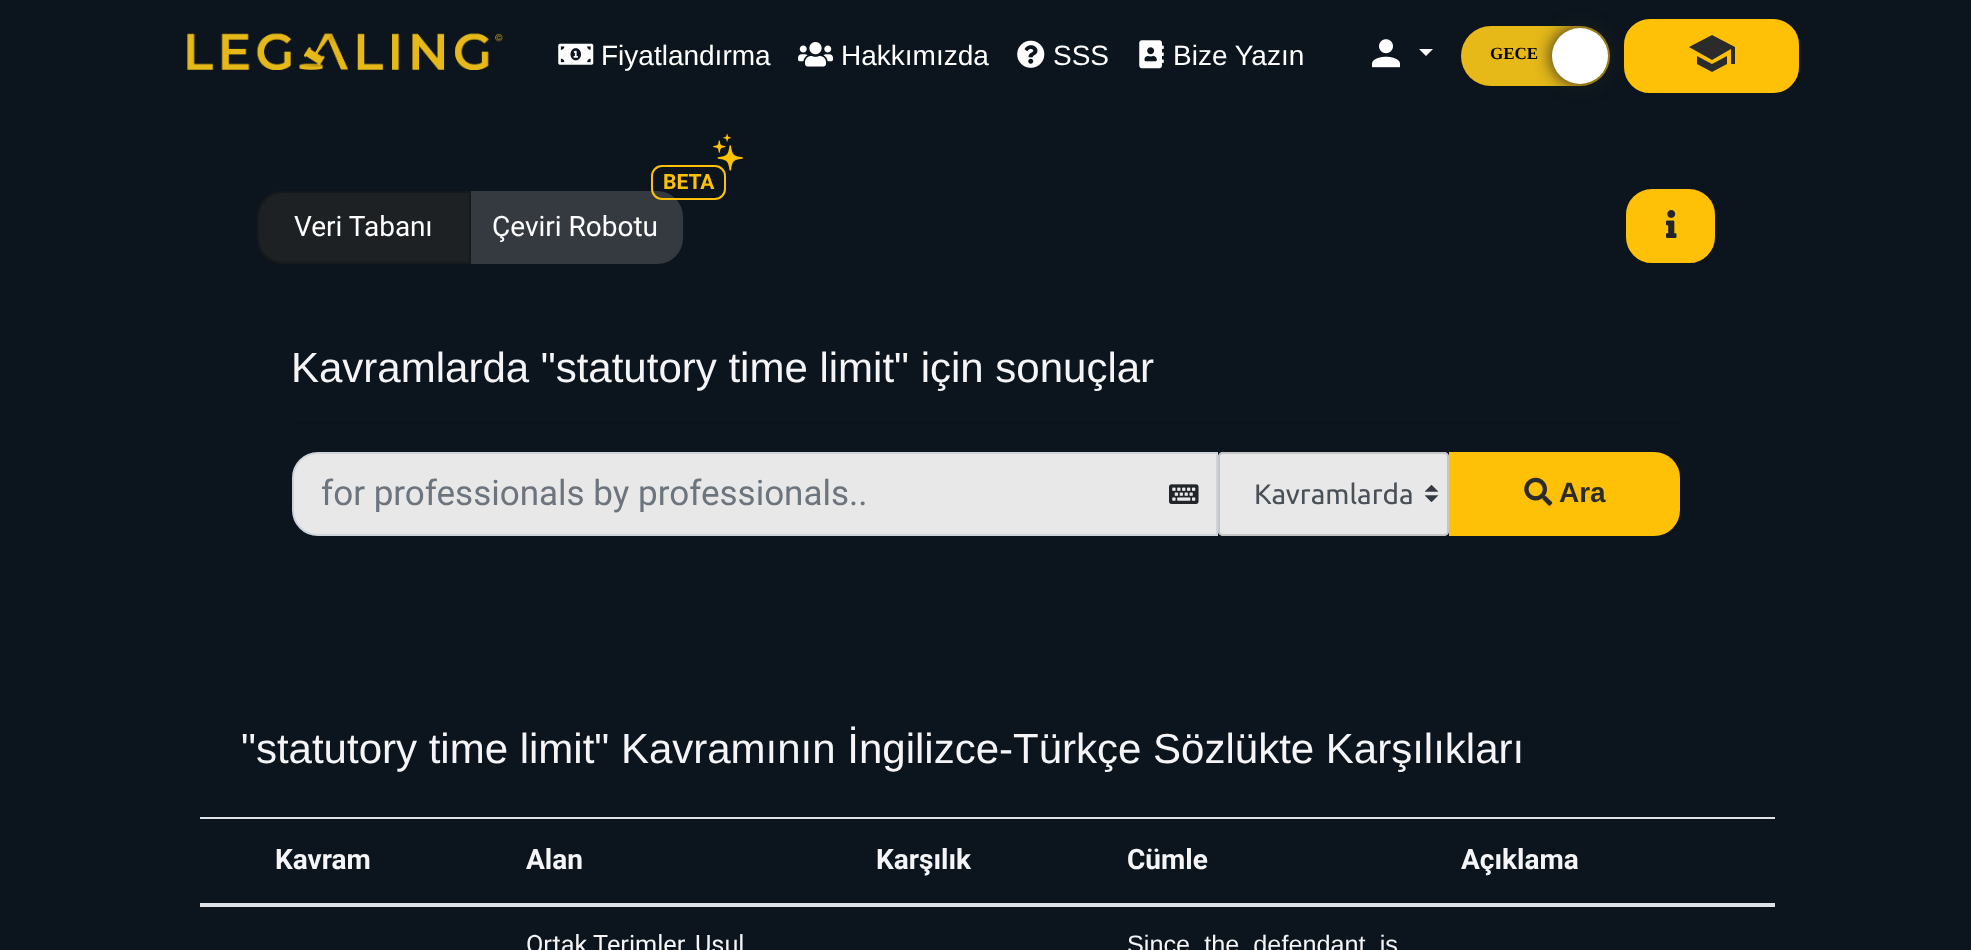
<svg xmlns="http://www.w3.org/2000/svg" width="1971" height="950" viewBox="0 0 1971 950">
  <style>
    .t1 { font: 28px Liberation Sans; fill: #fff; }
    .t2 { font: bold 17px Liberation Serif; fill: #000; }
    .t3 { font: bold 21px Roboto; fill: #ffc107; }
    .t4 { font: 28px Roboto; fill: #fff; }
    .t5 { font: 42px Liberation Sans; fill: #f5f5f7; }
    .t6 { font: 35px Roboto; fill: #6c757d; }
    .t7 { font: 28px Ubuntu; fill: #495057; }
    .t8 { font: bold 28px Liberation Sans; fill: #2b2b2b; }
    .t9 { font: bold 28px Roboto; fill: #f5f5f7; }
    .t10 { font: 25.25px Roboto; fill: #f5f5f7; }
    .t11 { font: 25.25px Liberation Sans; fill: #f5f5f7; }
  </style>
  <rect width="100%" height="100%" fill="#0c151d"/>
  <image x="187" y="33" width="316" height="37" href="images/1.png"/>
  <image x="558" y="43" width="36" height="22" href="images/2.png"/>
  <text x="601" y="65" class="t1">Fiyatlandırma</text>
  <image x="798" y="42" width="35" height="25" href="images/3.png"/>
  <text x="841" y="65" class="t1">Hakkımızda</text>
  <image x="1017" y="40" width="28" height="28" href="images/4.png"/>
  <text x="1053" y="65" class="t1">SSS</text>
  <image x="1139" y="40" width="25" height="29" href="images/5.png"/>
  <text x="1173" y="65" class="t1">Bize Yazın</text>
  <image x="1372" y="39" width="28" height="29" href="images/6.png"/>
  <path d="M1419 49H1433L1426 56Z" fill="#fff"/>
  <rect x="1461" y="26" width="149" height="60" rx="30" fill="#e6b919"/>
  <text x="1490" y="59" class="t2">GECE</text>
  <rect x="1625" y="20" width="173" height="72" rx="25" fill="#ffc107" stroke="#ffc107" stroke-width="2"/>
  <rect x="1552" y="28" width="56" height="56" rx="28" fill="#202020" filter="blur(9px)"/>
  <circle cx="1580" cy="56" r="28" fill="#fff"/>
  <path d="M1712 35L1689 47L1712 60L1731 49V64H1735V47ZM1697 56V64L1712 72L1727 64V56L1712 64Z" fill="#2b2b2b"/>
  <path d="M470 192H657C671 192 682 203 682 217V238C682 252 671 263 657 263H470Z" fill="#343a40" stroke="#343a40" stroke-width="2"/>
  <rect x="652" y="166" width="73" height="33" rx="10" fill="none" stroke="#ffc107" stroke-width="2"/>
  <image x="713" y="133" width="30" height="38" href="images/7.png"/>
  <text x="663" y="189" class="t3">BETA</text>
  <path d="M283 192H470V263H283C269 263 258 252 258 238V217C258 203 269 192 283 192Z" fill="#1d2124" stroke="#171a1d" stroke-width="2"/>
  <text x="294" y="236" class="t4">Veri Tabanı</text>
  <text x="492" y="236" class="t4">Çeviri Robotu</text>
  <rect x="1627" y="190" width="87" height="72" rx="25" fill="#ffc107" stroke="#ffc107" stroke-width="2"/>
  <image x="1666" y="210" width="11" height="28" href="images/8.png"/>
  <text x="291" y="382" class="t5">Kavramlarda "statutory time limit" için sonuçlar</text>
  <rect x="292" y="422" width="1390" height="2" fill="#0b131a"/>
  <path d="M318 453H1217V535H318C304 535 293 524 293 510V478C293 464 304 453 318 453Z" fill="#e8e8e8" stroke="#ced4da" stroke-width="2"/>
  <text x="321" y="505" class="t6">for professionals by professionals..</text>
  <image x="1169" y="484" width="30" height="20" href="images/9.png"/>
  <rect x="1218" y="452" width="231" height="84" rx="5" fill="#e8e8e8"/>
  <image x="1425" y="485" width="14" height="17" href="images/10.png"/>
  <rect x="1219" y="453" width="229" height="82" rx="4" fill="none" stroke="#c5c5c5" stroke-width="2"/>
  <text x="1254" y="504" class="t7">Kavramlarda</text>
  <path d="M1450 453H1654C1668 453 1679 464 1679 478V510C1679 524 1668 535 1654 535H1450Z" fill="#ffc107" stroke="#ffc107" stroke-width="2"/>
  <image x="1524" y="477" width="29" height="29" href="images/11.png"/>
  <text x="1559" y="502" class="t8">Ara</text>
  <text x="241" y="763" class="t5">"statutory time limit" Kavramının İngilizce-Türkçe Sözlükte Karşılıkları</text>
  <text x="275" y="869" class="t9">Kavram</text>
  <text x="526" y="869" class="t9">Alan</text>
  <text x="876" y="869" class="t9">Karşılık</text>
  <text x="1127" y="869" class="t9">Cümle</text>
  <rect x="200" y="817" width="1575" height="2" fill="#dee2e6"/>
  <rect x="200" y="903" width="1575" height="4" fill="#dee2e6"/>
  <text x="1461" y="869" class="t9">Açıklama</text>
  <text x="526" y="953" class="t10">Ortak Terimler, Usul</text>
  <text x="1127" y="953" word-spacing="7" class="t11">Since the defendant is</text>
</svg>
